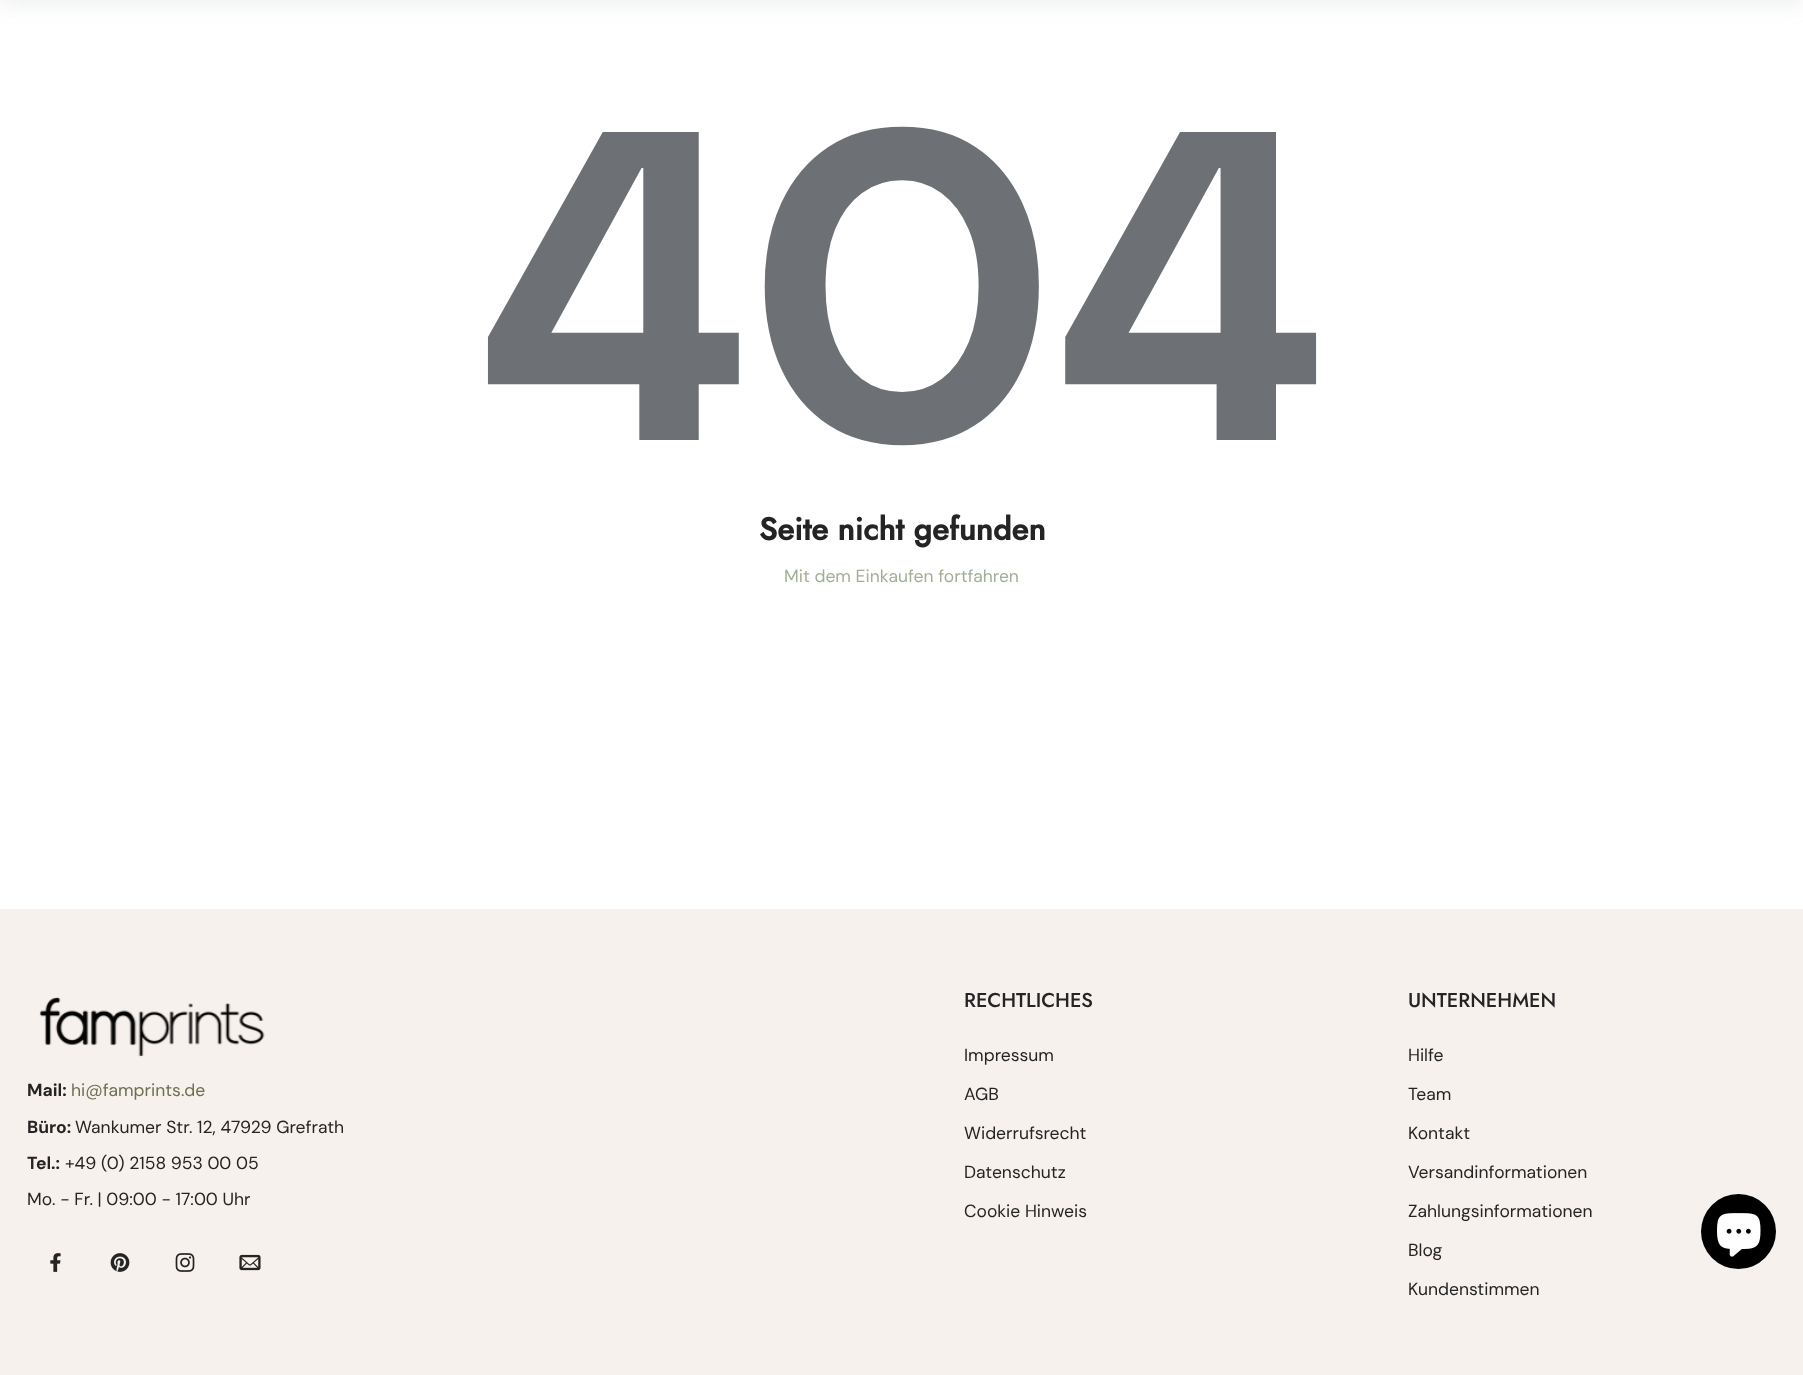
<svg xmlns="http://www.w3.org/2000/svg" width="1803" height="1375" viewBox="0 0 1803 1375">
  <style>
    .t1 { font: bold 440px DM Sans; fill: #6d7175; }
    .t2 { font: bold 31.5px Jost; fill: #242424; }
    .t3 { font: 17.5px DM Sans; fill: #a2af97; }
    .t4 { font: bold 17.5px 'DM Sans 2'; fill: #242424; }
    .t5 { font: 17.5px DM Sans; fill: #6b7050; }
    .t6 { font: 17.5px DM Sans; fill: #242424; }
    .t7 { font: 500 20px Jost; fill: #242424; }
  </style>
  <rect width="100%" height="100%" fill="#fff"/>
  <rect x="0" y="-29" width="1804" height="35" fill="#6d71751a" filter="blur(9.5px)"/>
  <text x="477" y="440" class="t1">404</text>
  <text x="759" y="540" class="t2">Seite nicht gefunden</text>
  <text x="784" y="582" class="t3">Mit dem Einkaufen fortfahren</text>
  <rect x="0" y="909" width="1803" height="466" fill="#f7f1ed"/>
  <image x="39" y="997" width="226" height="60" href="images/1.png"/>
  <text x="27" y="1096" class="t4">Mail:</text>
  <text x="71" y="1096" class="t5">hi@famprints.de</text>
  <text x="27" y="1133" class="t4">Büro:</text>
  <text x="75" y="1133" class="t6">Wankumer Str. 12, 47929 Grefrath</text>
  <text x="27" y="1169" class="t4">Tel.:</text>
  <text x="65" y="1169" class="t6">+49 (0) 2158 953 00 05</text>
  <text x="27" y="1205" class="t6">Mo. - Fr. | 09:00 - 17:00 Uhr</text>
  <image x="50" y="1253" width="11" height="19" href="images/2.png"/>
  <image x="110" y="1253" width="20" height="19" href="images/3.png"/>
  <image x="175" y="1253" width="20" height="19" href="images/4.png"/>
  <image x="239" y="1254" width="22" height="17" href="images/5.png"/>
  <text x="964" y="1007" class="t7">RECHTLICHES</text>
  <text x="964" y="1061" class="t6">Impressum</text>
  <text x="964" y="1100" class="t6">AGB</text>
  <text x="964" y="1139" class="t6">Widerrufsrecht</text>
  <text x="964" y="1178" class="t6">Datenschutz</text>
  <text x="964" y="1217" class="t6">Cookie Hinweis</text>
  <text x="1408" y="1007" class="t7">UNTERNEHMEN</text>
  <text x="1408" y="1061" class="t6">Hilfe</text>
  <text x="1408" y="1100" class="t6">Team</text>
  <text x="1408" y="1139" class="t6">Kontakt</text>
  <text x="1408" y="1178" class="t6">Versandinformationen</text>
  <text x="1408" y="1217" class="t6">Zahlungsinformationen</text>
  <text x="1408" y="1256" class="t6">Blog</text>
  <text x="1408" y="1295" class="t6">Kundenstimmen</text>
  <circle cx="1738.5" cy="1231.5" r="37.5" fill="#000"/>
  <image x="1717" y="1213" width="44" height="44" href="images/6.png"/>
</svg>
